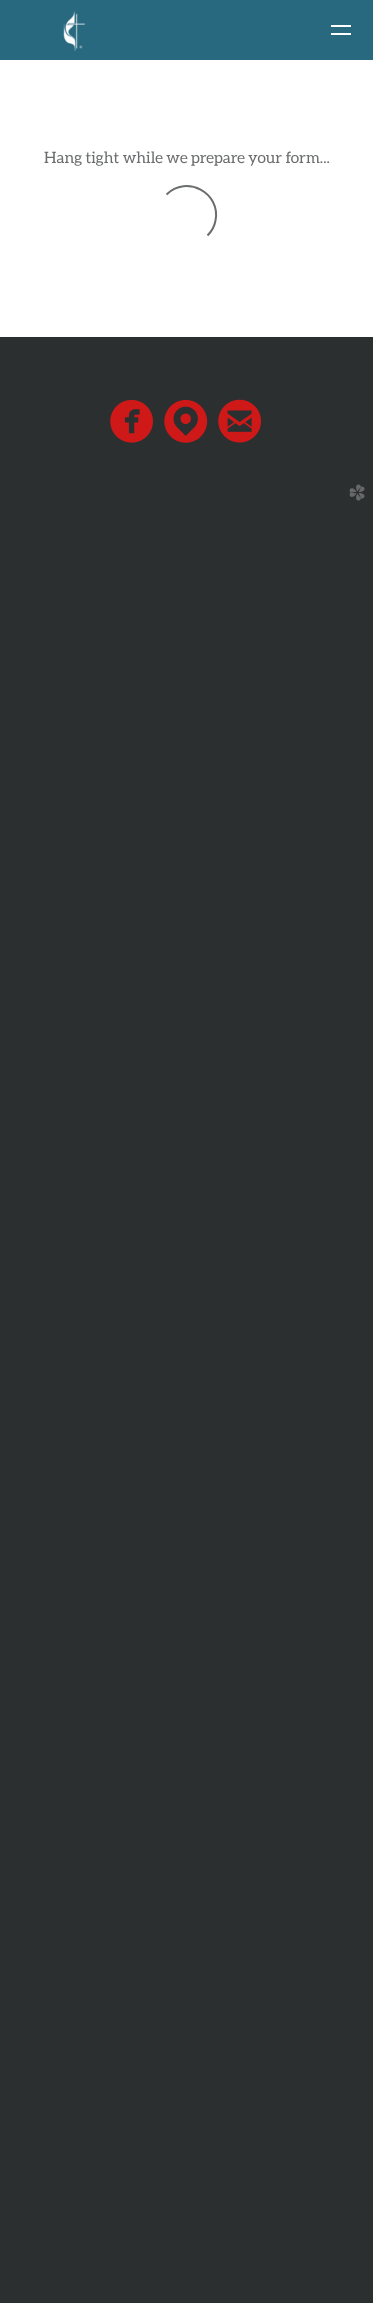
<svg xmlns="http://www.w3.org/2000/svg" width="373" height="2303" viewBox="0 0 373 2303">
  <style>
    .t1 { font: 15.7px Aleo; fill: #6b6d6e; }
  </style>
  <rect width="100%" height="100%" fill="#2c2f30"/>
  <rect x="0" y="0" width="373" height="60" fill="#286980"/>
  <rect x="331" y="25" width="20" height="2" fill="#fff"/>
  <rect x="331" y="33" width="20" height="2" fill="#fff"/>
  <image x="63" y="11" width="23" height="40" href="images/1.png"/>
  <rect x="0" y="60" width="373" height="277" fill="#fff"/>
  <text x="44" y="163" class="t1">Hang tight while we prepare your form...</text>
  <path d="M166.5 194.5C186.5 174.5 221 193 215.5 220.5C214.5 226.5 211.5 231.5 207.5 235.5" fill="none" stroke="#6b6d6e" stroke-width="2"/>
  <image x="110" y="399" width="43" height="44" href="images/2.png"/>
  <image x="164" y="400" width="44" height="43" href="images/3.png"/>
  <image x="218" y="399" width="43" height="44" href="images/4.png"/>
  <image x="349" y="484" width="16" height="17" href="images/5.png"/>
</svg>
